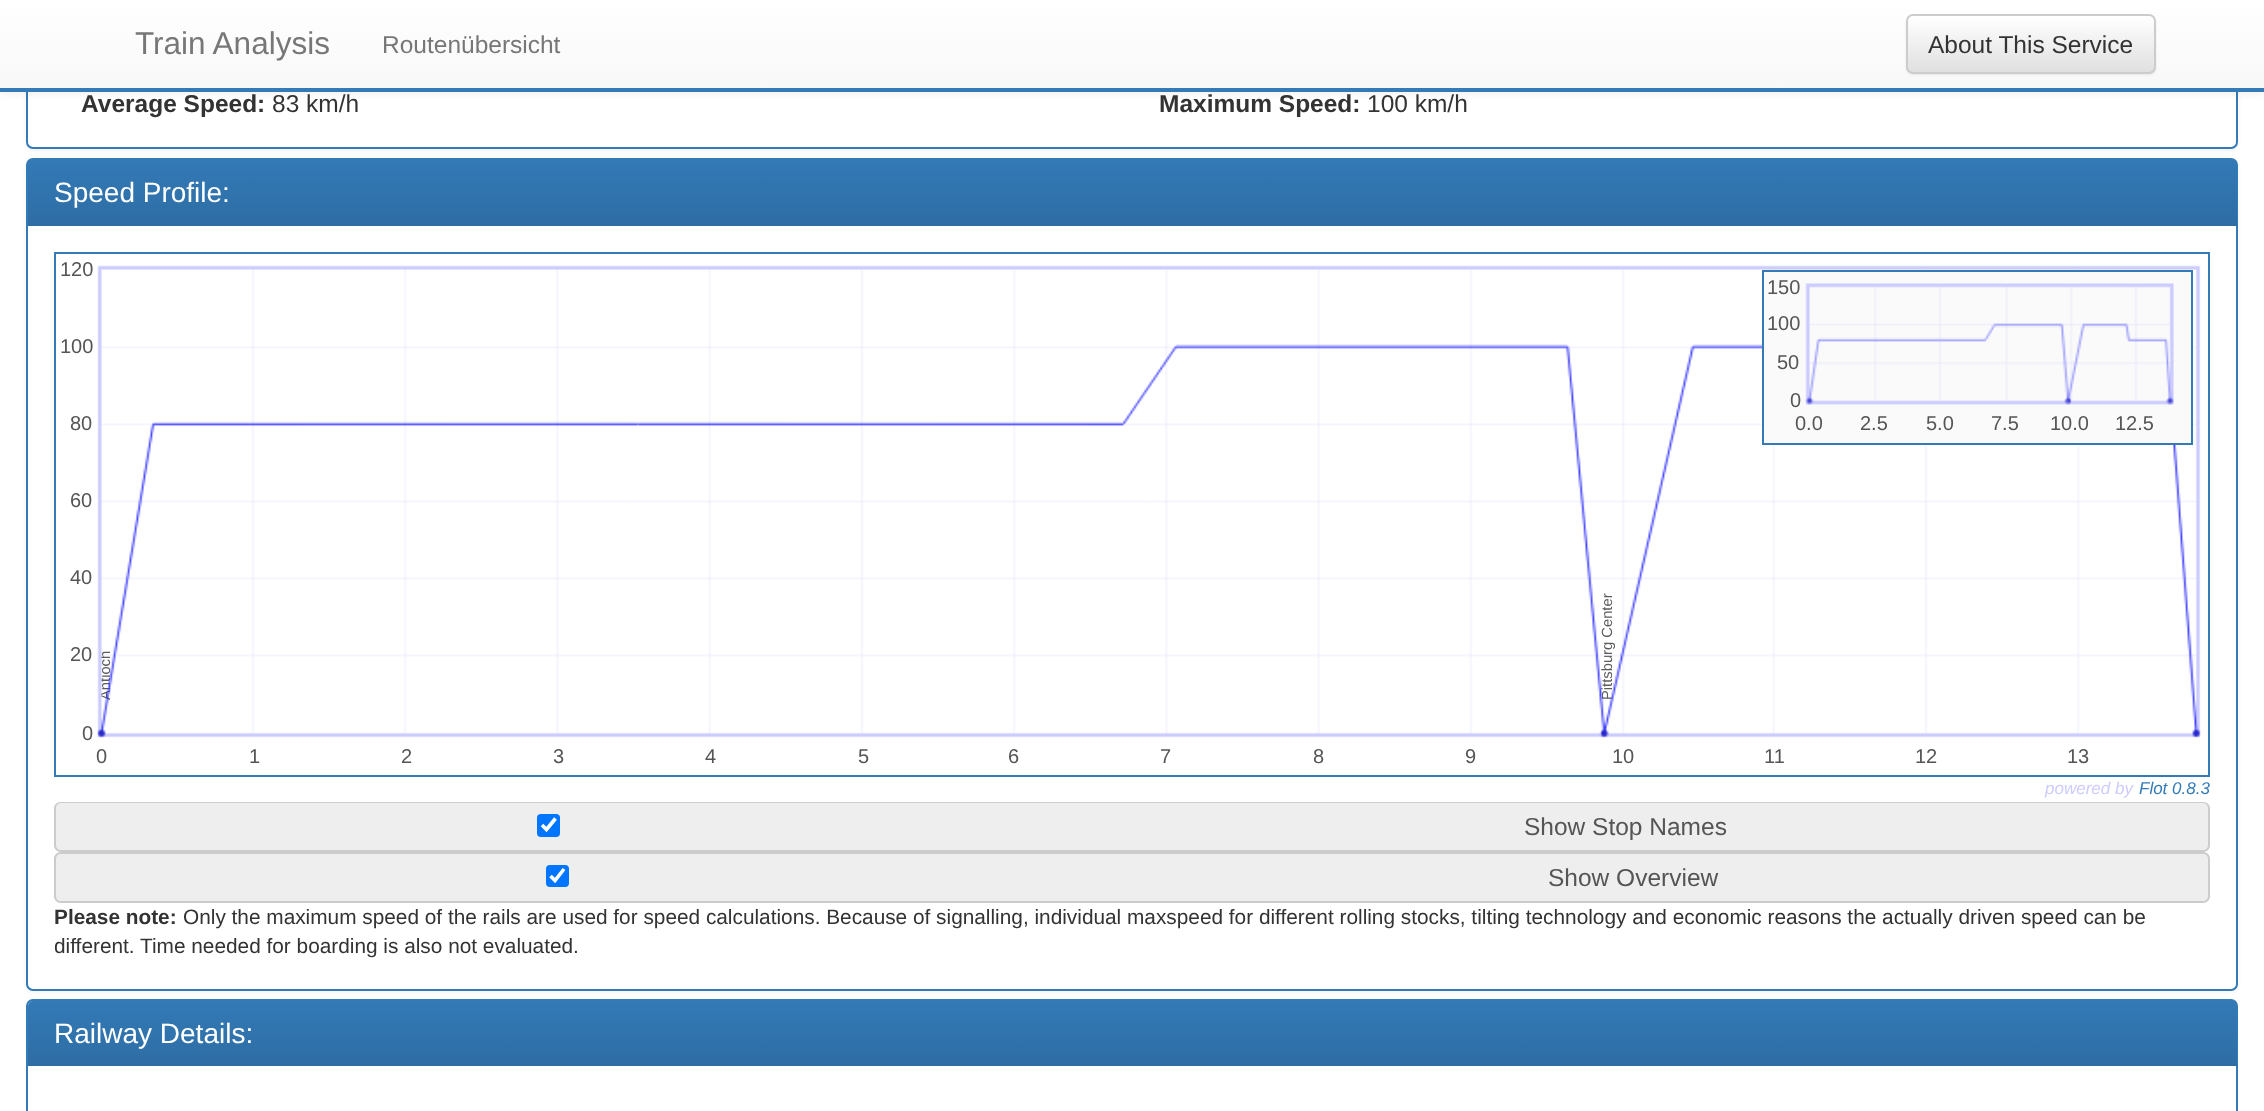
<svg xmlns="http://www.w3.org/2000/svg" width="2264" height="1111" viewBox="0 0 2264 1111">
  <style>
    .t1 { font: 31.5px Liberation Sans; fill: #777; }
    .t2 { font: 24.5px Liberation Sans; fill: #777; }
    .t3 { font: 24.5px Liberation Sans; fill: #333; }
    .t4 { font: bold 24.5px Liberation Sans; fill: #333; }
    .t5 { font: 28px Liberation Sans; fill: #fff; }
    .t6 { font: 20px Liberation Sans; fill: #555; }
    .t7 { font: 14.75px Liberation Sans; fill: #5c5c5c; }
    .t8 { font: italic 17px Liberation Sans; fill: #ccf; }
    .t9 { font: italic 17px Liberation Sans; fill: #337ab7; }
    .t10 { font: 24.5px Liberation Sans; fill: #555; }
    .t11 { font: bold 20.82px Liberation Sans; fill: #333; }
    .t12 { font: 20.82px Liberation Sans; fill: #333; }
  </style>
  <defs>
    <linearGradient id="g1" gradientUnits="userSpaceOnUse" x1="1132" y1="0" x2="1132" y2="88"><stop offset="0" stop-color="#fff"/><stop offset="1" stop-color="#f8f8f8"/></linearGradient>
    <clipPath id="clip1"><rect x="1906" y="14" width="250" height="60" rx="7"/></clipPath>
    <linearGradient id="g2" gradientUnits="userSpaceOnUse" x1="2031" y1="16" x2="2031" y2="72"><stop offset="0" stop-color="#fff"/><stop offset="1" stop-color="#e0e0e0"/></linearGradient>
    <linearGradient id="g3" gradientUnits="userSpaceOnUse" x1="1132" y1="159" x2="1132" y2="226"><stop offset="0" stop-color="#337ab7"/><stop offset="1" stop-color="#2e6da4"/></linearGradient>
    <linearGradient id="g4" gradientUnits="userSpaceOnUse" x1="1132" y1="1001" x2="1132" y2="1066"><stop offset="0" stop-color="#337ab7"/><stop offset="1" stop-color="#2e6da4"/></linearGradient>
  </defs>
  <rect width="100%" height="100%" fill="#fff"/>
  <rect x="26" y="-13" width="2212" height="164" rx="7" fill="#0000000d" filter="blur(2px)"/>
  <rect x="27" y="-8" width="2210" height="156" rx="6" fill="#fff" stroke="#337ab7" stroke-width="2"/>
  <rect x="0" y="2" width="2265" height="91" fill="#00000012" filter="blur(4.5px)"/>
  <rect x="0" y="0" width="2264" height="88" fill="url(#g1)"/>
  <rect x="0" y="88" width="2264" height="4" fill="#337ab7"/>
  <text x="135" y="54" class="t1">Train Analysis</text>
  <text x="382" y="53" class="t2">Routenübersicht</text>
  <rect x="1906" y="16" width="250" height="59" rx="7" fill="#00000012" filter="blur(1px)"/>
  <g clip-path="url(#clip1)">
    <rect x="1906" y="16" width="250" height="56" fill="url(#g2)"/>
  </g>
  <rect x="1907" y="15" width="248" height="58" rx="6" fill="none" stroke="#ccc" stroke-width="2"/>
  <text x="1928" y="53" class="t3">About This Service</text>
  <text x="81" y="112" class="t4">Average Speed:</text>
  <text x="272" y="112" class="t3">83 km/h</text>
  <text x="1159" y="112" class="t4">Maximum Speed:</text>
  <text x="1367" y="112" class="t3">100 km/h</text>
  <rect x="26" y="159" width="2212" height="833" rx="7" fill="#0000000d" filter="blur(2px)"/>
  <rect x="27" y="159" width="2210" height="831" rx="6" fill="#fff" stroke="#337ab7" stroke-width="2"/>
  <path d="M33 159H2232C2235 159 2237 161 2237 164V226H28V164C28 161 30 159 33 159Z" fill="url(#g3)"/>
  <text x="54" y="202" class="t5">Speed Profile:</text>
  <rect x="55" y="253" width="2154" height="523" fill="none" stroke="#337ab7" stroke-width="2"/>
  <text x="60" y="276" class="t6">120</text>
  <text x="60" y="353" class="t6">100</text>
  <text x="70" y="430" class="t6">80</text>
  <text x="70" y="507" class="t6">60</text>
  <text x="70" y="584" class="t6">40</text>
  <text x="70" y="661" class="t6">20</text>
  <text x="82" y="740" class="t6">0</text>
  <text x="96" y="763" class="t6">0</text>
  <text x="249" y="763" class="t6">1</text>
  <text x="401" y="763" class="t6">2</text>
  <text x="553" y="763" class="t6">3</text>
  <text x="705" y="763" class="t6">4</text>
  <text x="858" y="763" class="t6">5</text>
  <text x="1008" y="763" class="t6">6</text>
  <text x="1160" y="763" class="t6">7</text>
  <text x="1313" y="763" class="t6">8</text>
  <text x="1465" y="763" class="t6">9</text>
  <text x="1612" y="763" class="t6">10</text>
  <text x="1764" y="763" class="t6">11</text>
  <text x="1915" y="763" class="t6">12</text>
  <text x="2067" y="763" class="t6">13</text>
  <text x="110" y="700" transform="rotate(-90 110 700)" class="t7">Antioch</text>
  <text x="1612" y="700" transform="rotate(-90 1612 700)" class="t7">Pittsburg Center</text>
  <image x="97" y="265" width="2104" height="473" href="images/1.png"/>
  <rect x="1763" y="271" width="429" height="173" fill="#fafafa" stroke="#337ab7" stroke-width="2"/>
  <text x="1767" y="294" class="t6">150</text>
  <text x="1767" y="330" class="t6">100</text>
  <text x="1777" y="369" class="t6">50</text>
  <text x="1790" y="407" class="t6">0</text>
  <text x="1795" y="430" class="t6">0.0</text>
  <text x="1860" y="430" class="t6">2.5</text>
  <text x="1926" y="430" class="t6">5.0</text>
  <text x="1991" y="430" class="t6">7.5</text>
  <text x="2050" y="430" class="t6">10.0</text>
  <text x="2115" y="430" class="t6">12.5</text>
  <image x="1805" y="283" width="369" height="122" href="images/2.png"/>
  <text x="2045" y="794" class="t8">powered by</text>
  <text x="2139" y="794" class="t9">Flot 0.8.3</text>
  <path d="M61 802H1043V852H61C57 852 54 849 54 845V809C54 805 57 802 61 802Z" fill="#eee"/>
  <path d="M61 802H1043V852H61C57 852 54 849 54 845V808C54 805 57 802 61 802ZM61 803H1043V850H61C58 850 56 848 56 845V808C56 806 58 803 61 803Z" fill="#ccc" fill-rule="evenodd"/>
  <rect x="537" y="814" width="23" height="23" rx="4" fill="#0075ff"/>
  <path d="M542 825L546.5 829.5L555.5 818.5" fill="none" stroke="#fff" stroke-width="3.6"/>
  <path d="M1043 802H2203C2207 802 2210 805 2210 809V845C2210 849 2207 852 2203 852H1043Z" fill="#eee"/>
  <path d="M1043 802H2203C2207 802 2210 805 2210 808V845C2210 849 2207 852 2203 852H1043ZM1043 803H2203C2206 803 2208 806 2208 808V845C2208 848 2206 850 2203 850H1043Z" fill="#ccc" fill-rule="evenodd"/>
  <text x="1524" y="835" class="t10">Show Stop Names</text>
  <path d="M61 852H1059V903H61C57 903 54 900 54 896V859C54 855 57 852 61 852Z" fill="#eee"/>
  <path d="M61 852H1059V903H61C57 903 54 900 54 896V859C54 855 57 852 61 852ZM61 854H1059V901H61C58 901 56 899 56 896V859C56 856 58 854 61 854Z" fill="#ccc" fill-rule="evenodd"/>
  <rect x="546" y="865" width="23" height="22" rx="4" fill="#0075ff"/>
  <path d="M550.5 876L555 880.5L564 869" fill="none" stroke="#fff" stroke-width="3.6"/>
  <path d="M1059 852H2203C2207 852 2210 855 2210 859V896C2210 900 2207 903 2203 903H1059Z" fill="#eee"/>
  <path d="M1059 852H2203C2207 852 2210 855 2210 859V896C2210 900 2207 903 2203 903H1059ZM1059 854H2203C2206 854 2208 856 2208 859V896C2208 899 2206 901 2203 901H1059Z" fill="#ccc" fill-rule="evenodd"/>
  <text x="1548" y="886" class="t10">Show Overview</text>
  <text x="54" y="924" class="t11">Please note:</text>
  <text x="183" y="924" class="t12">Only the maximum speed of the rails are used for speed calculations. Because of signalling, individual maxspeed for different rolling stocks, tilting technology and economic reasons the actually driven speed can be</text>
  <text x="54" y="953" class="t12">different. Time needed for boarding is also not evaluated.</text>
  <rect x="27" y="1000" width="2210" height="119" rx="6" fill="none" stroke="#337ab7" stroke-width="2"/>
  <path d="M33 1001H2232C2235 1001 2237 1003 2237 1006V1066H28V1006C28 1003 30 1001 33 1001Z" fill="url(#g4)"/>
  <text x="54" y="1043" class="t5">Railway Details:</text>
</svg>
